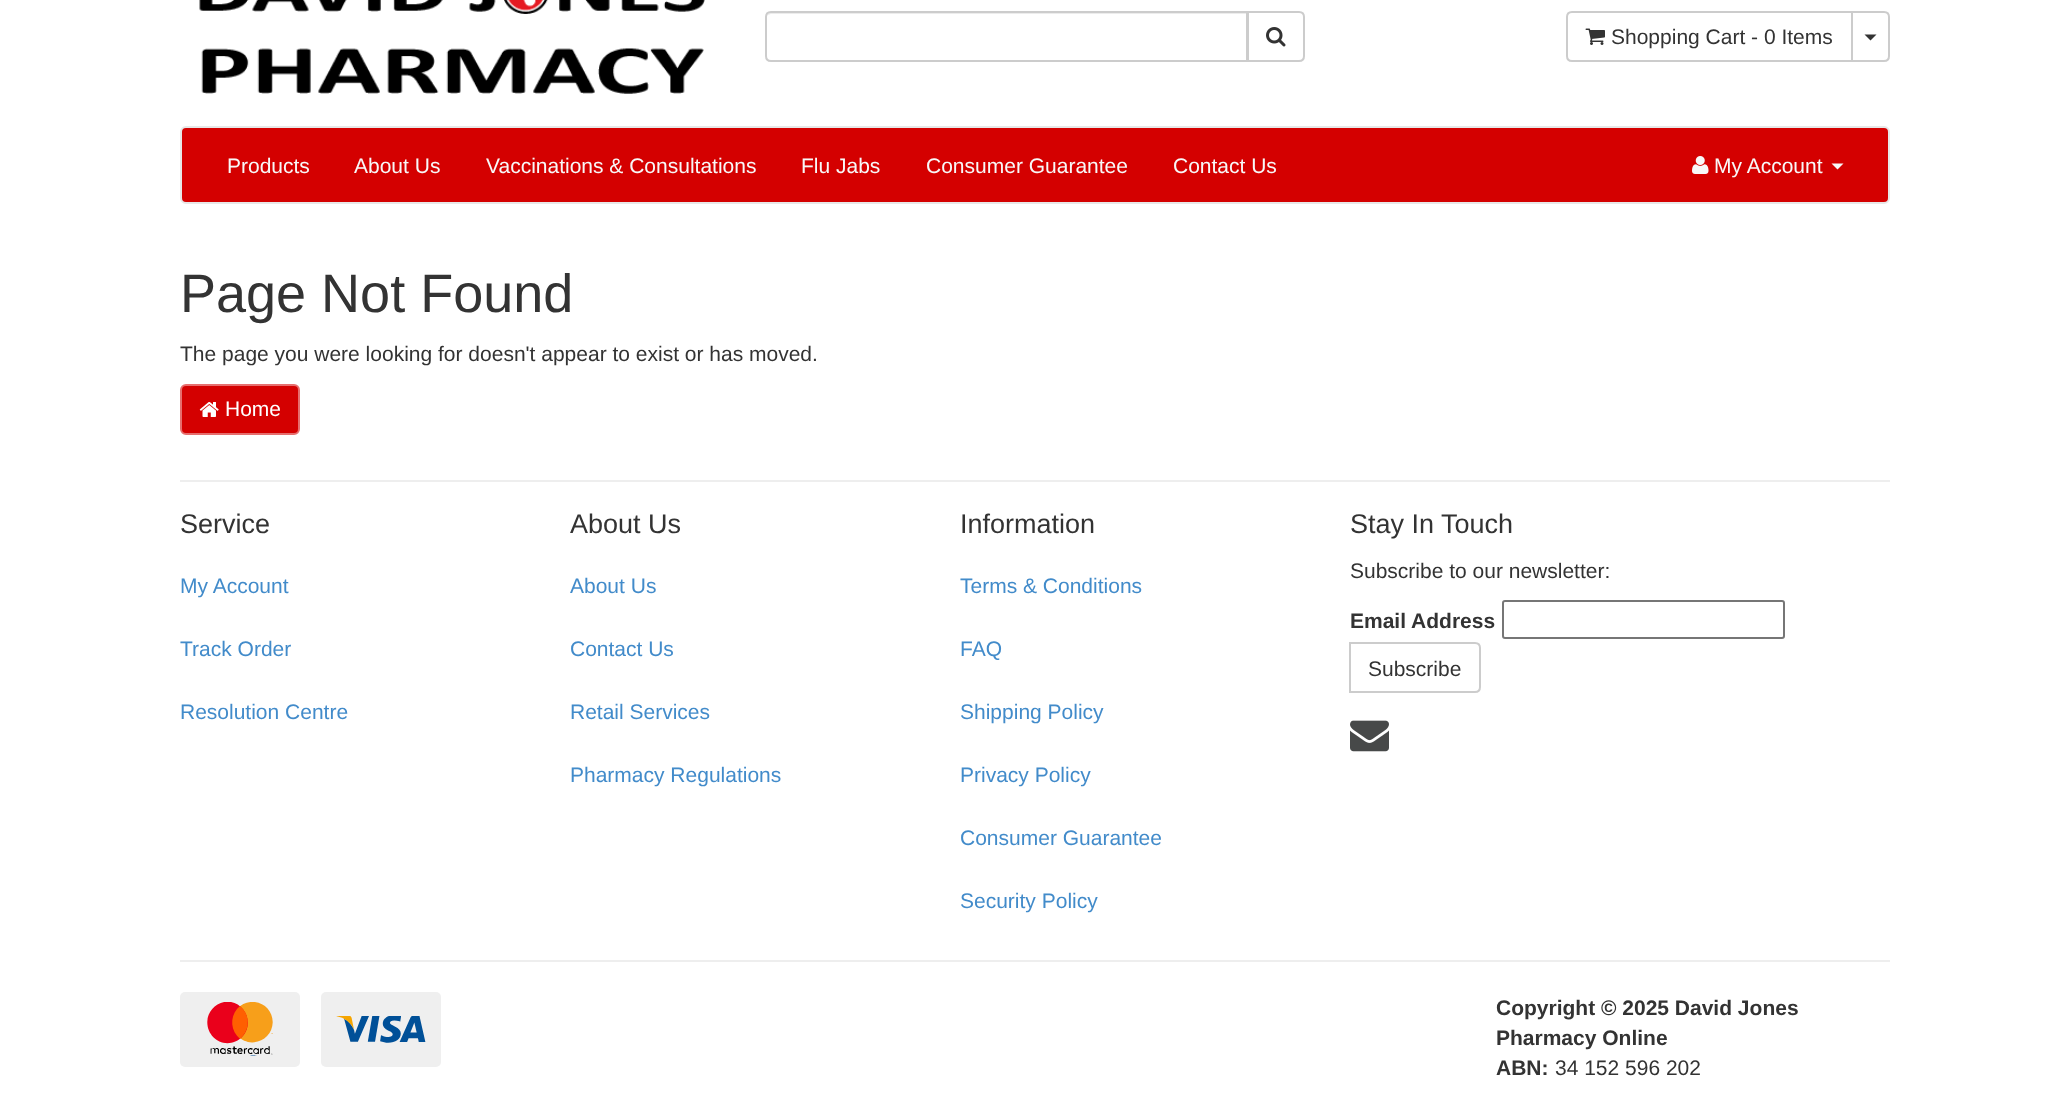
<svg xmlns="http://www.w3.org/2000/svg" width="2070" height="1097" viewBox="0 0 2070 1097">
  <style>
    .t1 { font: 21px Liberation Sans; fill: #333; }
    .t2 { font: 21px Liberation Sans; fill: #f8f8f8; }
    .t3 { font: 54px Liberation Sans; fill: #333; }
    .t4 { font: 21px Liberation Sans; fill: #fff; }
    .t5 { font: 27px Liberation Sans; fill: #333; }
    .t6 { font: 21px Liberation Sans; fill: #428bca; }
    .t7 { font: bold 21px Liberation Sans; fill: #333; }
  </style>
  <rect width="100%" height="100%" fill="#fff"/>
  <image x="199" y="0" width="506" height="94" href="images/1.png"/>
  <path d="M771 14H1246V60H1247V12H772C770 12 768 14 767 16C768 15 770 14 771 14Z" fill="#ececec"/>
  <path d="M771 12H1247V61H771C768 61 766 59 766 56V17C766 14 768 12 771 12Z" fill="none" stroke="#ccc" stroke-width="2"/>
  <path d="M1248 12H1299C1302 12 1304 14 1304 17V56C1304 59 1302 61 1299 61H1248Z" fill="#fff" stroke="#ccc" stroke-width="2"/>
  <image x="1266" y="27" width="20" height="20" href="images/2.png"/>
  <path d="M1572 12H1852V61H1572C1569 61 1567 59 1567 56V17C1567 14 1569 12 1572 12Z" fill="none" stroke="#ccc" stroke-width="2"/>
  <image x="1585" y="28" width="20" height="17" href="images/3.png"/>
  <text x="1611" y="44" class="t1">Shopping Cart - 0 Items</text>
  <path d="M1852 12H1884C1887 12 1889 14 1889 17V56C1889 59 1887 61 1884 61H1852Z" fill="#fff" stroke="#ccc" stroke-width="2"/>
  <path d="M1864.5 34.5H1876.5L1870.5 40.5Z" fill="#333"/>
  <rect x="181" y="127" width="1708" height="76" rx="5" fill="#d40000" stroke="#e7e7e7" stroke-width="2"/>
  <text x="227" y="173" class="t2">Products</text>
  <text x="354" y="173" class="t2">About Us</text>
  <text x="486" y="173" class="t2">Vaccinations &amp; Consultations</text>
  <text x="801" y="173" class="t2">Flu Jabs</text>
  <text x="926" y="173" class="t2">Consumer Guarantee</text>
  <text x="1173" y="173" class="t2">Contact Us</text>
  <image x="1692" y="156" width="17" height="18" href="images/4.png"/>
  <text x="1714" y="173" class="t2">My Account</text>
  <path d="M1831.5 163.5H1843.5L1837.5 169.5Z" fill="#f8f8f8"/>
  <text x="180" y="312" class="t3">Page Not Found</text>
  <text x="180" y="361" class="t1">The page you were looking for doesn't appear to exist or has moved.</text>
  <rect x="181" y="385" width="118" height="49" rx="5" fill="#d40000" stroke="#e66e6e" stroke-width="2"/>
  <image x="199" y="402" width="20" height="15" href="images/5.png"/>
  <text x="225" y="416" class="t4">Home</text>
  <rect x="180" y="480" width="1710" height="2" fill="#eee"/>
  <text x="180" y="533" class="t5">Service</text>
  <text x="180" y="593" class="t6">My Account</text>
  <text x="180" y="656" class="t6">Track Order</text>
  <text x="180" y="719" class="t6">Resolution Centre</text>
  <text x="570" y="533" class="t5">About Us</text>
  <text x="570" y="593" class="t6">About Us</text>
  <text x="570" y="656" class="t6">Contact Us</text>
  <text x="570" y="719" class="t6">Retail Services</text>
  <text x="570" y="782" class="t6">Pharmacy Regulations</text>
  <text x="960" y="533" class="t5">Information</text>
  <text x="960" y="593" class="t6">Terms &amp; Conditions</text>
  <text x="960" y="656" class="t6">FAQ</text>
  <text x="960" y="719" class="t6">Shipping Policy</text>
  <text x="960" y="782" class="t6">Privacy Policy</text>
  <text x="960" y="845" class="t6">Consumer Guarantee</text>
  <text x="960" y="908" class="t6">Security Policy</text>
  <text x="1350" y="533" class="t5">Stay In Touch</text>
  <text x="1350" y="578" class="t1">Subscribe to our newsletter:</text>
  <text x="1350" y="628" class="t7">Email Address</text>
  <rect x="1503" y="601" width="281" height="37" rx="2" fill="none" stroke="#767676" stroke-width="2"/>
  <path d="M1350 643H1475C1478 643 1480 645 1480 648V687C1480 690 1478 692 1475 692H1350Z" fill="none" stroke="#ccc" stroke-width="2"/>
  <text x="1368" y="676" class="t1">Subscribe</text>
  <image x="1350" y="720" width="39" height="32" href="images/6.png"/>
  <rect x="180" y="960" width="1710" height="2" fill="#eee"/>
  <rect x="180" y="992" width="120" height="75" rx="5" fill="#efefef"/>
  <image x="207" y="1002" width="66" height="54" href="images/7.png"/>
  <rect x="321" y="992" width="120" height="75" rx="5" fill="#efefef"/>
  <image x="336" y="1016" width="90" height="27" href="images/8.png"/>
  <text x="1496" y="1015" class="t7">Copyright © 2025 David Jones</text>
  <text x="1496" y="1045" class="t7">Pharmacy Online</text>
  <text x="1496" y="1075" class="t7">ABN:</text>
  <text x="1555" y="1075" class="t1">34 152 596 202</text>
</svg>
